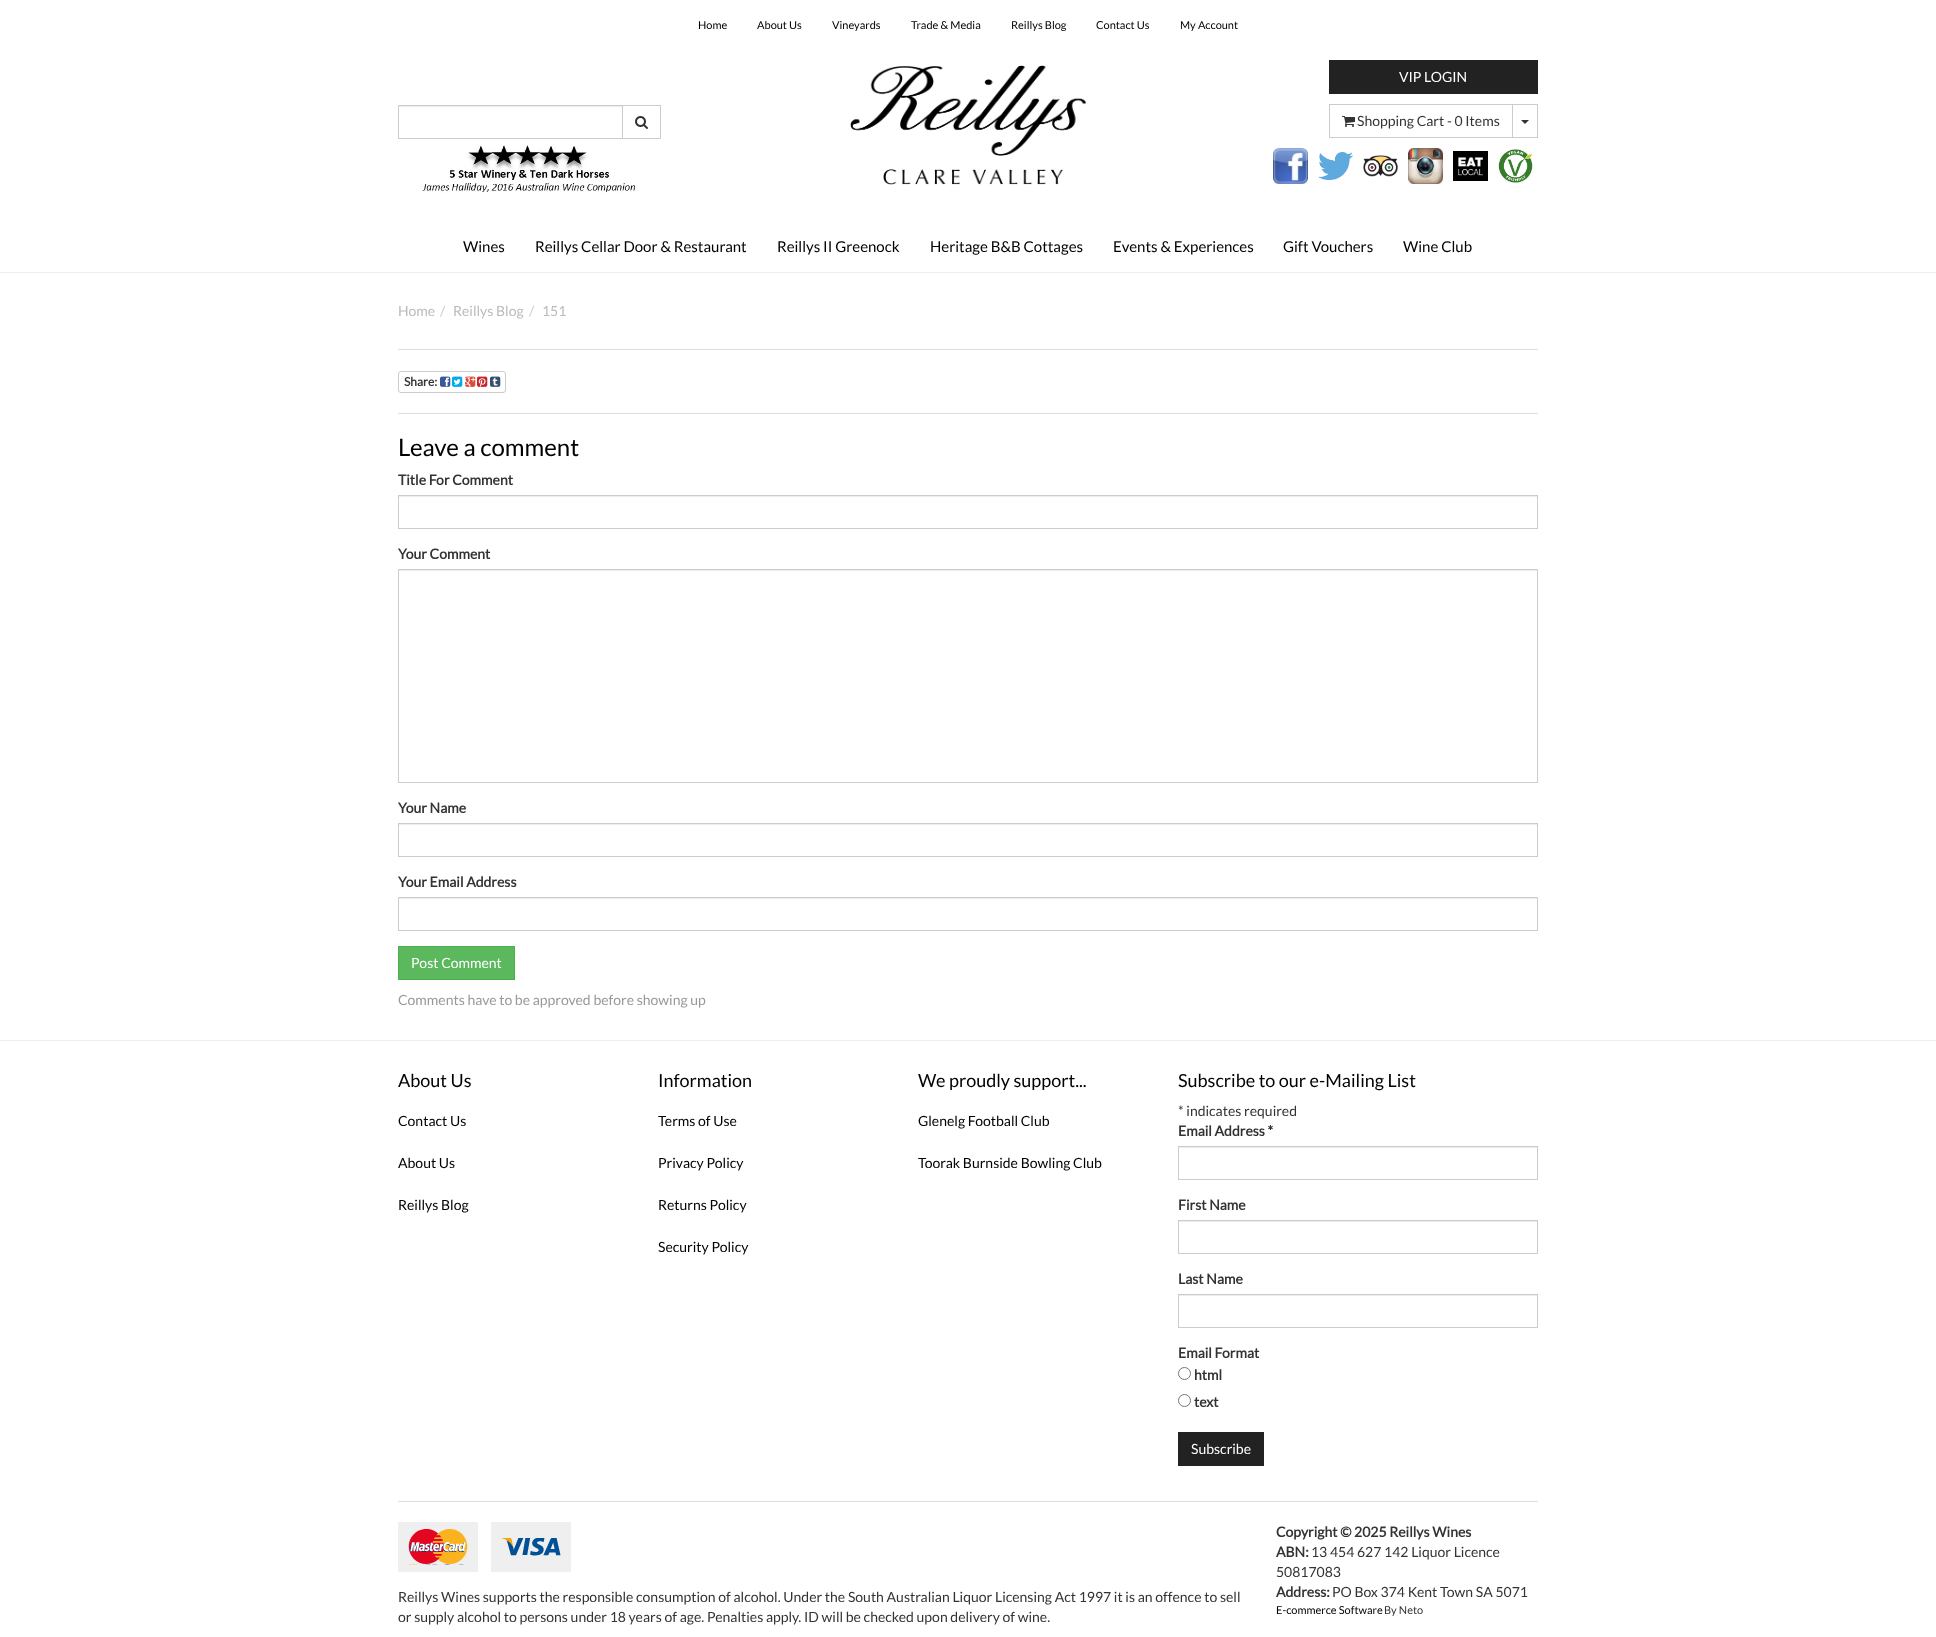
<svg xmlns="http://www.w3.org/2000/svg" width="1936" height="1637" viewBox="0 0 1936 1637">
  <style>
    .t1 { font: 11px Lato; fill: #000; }
    .t2 { font: 14px Lato; fill: #fff; }
    .t3 { font: 14px Lato; fill: #333; }
    .t4 { font: 15px Lato; fill: #000; }
    .t5 { font: 14px Lato; fill: #bbb; }
    .t6 { font: 14px Lato; fill: #ccc; }
    .t7 { font: bold 12px Lato; fill: #333; }
    .t8 { font: 24px Lato; fill: #000; }
    .t9 { font: bold 14px Lato; fill: #333; }
    .t10 { font: 14px Lato; fill: #999; }
    .t11 { font: 18px Lato; fill: #000; }
    .t12 { font: 14px Lato; fill: #000; }
    .t13 { font: 11px Lato; fill: #333; }
  </style>
  <rect width="100%" height="100%" fill="#fff"/>
  <rect x="0" y="272" width="1936" height="1" fill="#eee"/>
  <text x="698" y="29" class="t1">Home</text>
  <text x="757" y="29" class="t1">About Us</text>
  <text x="832" y="29" class="t1">Vineyards</text>
  <text x="911" y="29" class="t1">Trade &amp; Media</text>
  <text x="1011" y="29" class="t1">Reillys Blog</text>
  <text x="1096" y="29" class="t1">Contact Us</text>
  <text x="1180" y="29" class="t1">My Account</text>
  <rect x="399" y="106" width="223" height="1" fill="#ececec"/>
  <rect x="398.5" y="105.5" width="224" height="33" fill="none" stroke="#ccc"/>
  <rect x="622.5" y="105.5" width="38" height="33" fill="none" stroke="#ccc"/>
  <image x="635" y="116" width="13" height="13" href="images/1.png"/>
  <image x="422" y="145" width="215" height="48" href="images/2.png"/>
  <image x="850" y="65" width="236" height="120" href="images/3.png"/>
  <rect x="1329" y="60" width="209" height="34" fill="#222"/>
  <text x="1399" y="82" class="t2">VIP LOGIN</text>
  <rect x="1329.5" y="104.5" width="183" height="33" fill="none" stroke="#ccc"/>
  <image x="1342" y="116" width="13" height="11" href="images/4.png"/>
  <text x="1357" y="126" class="t3">Shopping Cart - 0 Items</text>
  <rect x="1512.5" y="104.5" width="25" height="33" fill="none" stroke="#ccc"/>
  <path d="M1521 120H1529L1525 124Z" fill="#333"/>
  <image x="1273" y="148" width="35" height="36" href="images/5.png"/>
  <image x="1318" y="152" width="35" height="28" href="images/6.png"/>
  <image x="1363" y="155" width="35" height="22" href="images/7.png"/>
  <image x="1408" y="148" width="35" height="36" href="images/8.png"/>
  <image x="1453" y="151" width="35" height="30" href="images/9.png"/>
  <image x="1498" y="149" width="35" height="34" href="images/10.png"/>
  <text x="463" y="252" class="t4">Wines</text>
  <text x="535" y="252" class="t4">Reillys Cellar Door &amp; Restaurant</text>
  <text x="777" y="252" class="t4">Reillys II Greenock</text>
  <text x="930" y="252" class="t4">Heritage B&amp;B Cottages</text>
  <text x="1113" y="252" class="t4">Events &amp; Experiences</text>
  <text x="1283" y="252" class="t4">Gift Vouchers</text>
  <text x="1403" y="252" class="t4">Wine Club</text>
  <text x="398" y="316" class="t5">Home</text>
  <text x="440" y="316" class="t6">/</text>
  <text x="453" y="316" class="t5">Reillys Blog</text>
  <text x="529" y="316" class="t6">/</text>
  <text x="542" y="316" class="t5">151</text>
  <rect x="398" y="349" width="1140" height="1" fill="#ddd"/>
  <rect x="398.5" y="371.5" width="107" height="21" rx="2.5" fill="none" stroke="#ccc"/>
  <text x="404" y="386" class="t7">Share:</text>
  <image x="440" y="376" width="11" height="11" href="images/11.png"/>
  <image x="452" y="376" width="11" height="11" href="images/12.png"/>
  <image x="465" y="376" width="11" height="11" href="images/13.png"/>
  <image x="477" y="376" width="11" height="11" href="images/14.png"/>
  <image x="490" y="376" width="11" height="11" href="images/15.png"/>
  <rect x="398" y="413" width="1140" height="1" fill="#ddd"/>
  <text x="398" y="456" class="t8">Leave a comment</text>
  <text x="398" y="485" class="t9">Title For Comment</text>
  <rect x="399" y="496" width="1138" height="1" fill="#ececec"/>
  <rect x="398.5" y="495.5" width="1139" height="33" fill="none" stroke="#ccc"/>
  <text x="398" y="559" class="t9">Your Comment</text>
  <rect x="399" y="570" width="1138" height="1" fill="#ececec"/>
  <rect x="398.5" y="569.5" width="1139" height="213" fill="none" stroke="#ccc"/>
  <text x="398" y="813" class="t9">Your Name</text>
  <rect x="399" y="824" width="1138" height="1" fill="#ececec"/>
  <rect x="398.5" y="823.5" width="1139" height="33" fill="none" stroke="#ccc"/>
  <text x="398" y="887" class="t9">Your Email Address</text>
  <rect x="399" y="898" width="1138" height="1" fill="#ececec"/>
  <rect x="398.5" y="897.5" width="1139" height="33" fill="none" stroke="#ccc"/>
  <rect x="398.5" y="946.5" width="116" height="33" fill="#5cb85c" stroke="#4cae4c"/>
  <text x="411" y="968" class="t2">Post Comment</text>
  <text x="398" y="1005" class="t10">Comments have to be approved before showing up</text>
  <rect x="0" y="1040" width="1936" height="1" fill="#eee"/>
  <text x="398" y="1087" class="t11">About Us</text>
  <text x="398" y="1126" class="t12">Contact Us</text>
  <text x="398" y="1168" class="t12">About Us</text>
  <text x="398" y="1210" class="t12">Reillys Blog</text>
  <text x="658" y="1087" class="t11">Information</text>
  <text x="658" y="1126" class="t12">Terms of Use</text>
  <text x="658" y="1168" class="t12">Privacy Policy</text>
  <text x="658" y="1210" class="t12">Returns Policy</text>
  <text x="658" y="1252" class="t12">Security Policy</text>
  <text x="918" y="1087" class="t11">We proudly support...</text>
  <text x="918" y="1126" class="t12">Glenelg Football Club</text>
  <text x="918" y="1168" class="t12">Toorak Burnside Bowling Club</text>
  <text x="1178" y="1087" class="t11">Subscribe to our e-Mailing List</text>
  <text x="1178" y="1116" class="t3">* indicates required</text>
  <text x="1178" y="1136" class="t9">Email Address *</text>
  <rect x="1179" y="1147" width="358" height="1" fill="#ececec"/>
  <rect x="1178.5" y="1146.5" width="359" height="33" fill="none" stroke="#ccc"/>
  <text x="1178" y="1210" class="t9">First Name</text>
  <rect x="1179" y="1221" width="358" height="1" fill="#ececec"/>
  <rect x="1178.5" y="1220.5" width="359" height="33" fill="none" stroke="#ccc"/>
  <text x="1178" y="1284" class="t9">Last Name</text>
  <rect x="1179" y="1295" width="358" height="1" fill="#ececec"/>
  <rect x="1178.5" y="1294.5" width="359" height="33" fill="none" stroke="#ccc"/>
  <text x="1178" y="1358" class="t9">Email Format</text>
  <circle cx="1184.5" cy="1373.5" r="6" fill="none" stroke="#767676"/>
  <text x="1194" y="1380" class="t9">html</text>
  <circle cx="1184.5" cy="1400.5" r="6" fill="none" stroke="#767676"/>
  <text x="1194" y="1407" class="t9">text</text>
  <rect x="1178" y="1432" width="86" height="34" fill="#222"/>
  <text x="1191" y="1454" class="t2">Subscribe</text>
  <rect x="398" y="1501" width="1140" height="1" fill="#ddd"/>
  <rect x="398" y="1522" width="80" height="50" fill="#efefef"/>
  <image x="408" y="1529" width="60" height="36" href="images/16.png"/>
  <rect x="491" y="1522" width="80" height="50" fill="#efefef"/>
  <image x="501" y="1538" width="60" height="18" href="images/17.png"/>
  <text x="398" y="1602" class="t3">Reillys Wines supports the responsible consumption of alcohol. Under the South Australian Liquor Licensing Act 1997 it is an offence to sell</text>
  <text x="398" y="1622" class="t3">or supply alcohol to persons under 18 years of age. Penalties apply. ID will be checked upon delivery of wine.</text>
  <text x="1276" y="1537" class="t9">Copyright © 2025 Reillys Wines</text>
  <text x="1276" y="1557" class="t9">ABN:</text>
  <text x="1311" y="1557" class="t3">13 454 627 142 Liquor Licence</text>
  <text x="1276" y="1577" class="t3">50817083</text>
  <text x="1276" y="1597" class="t9">Address:</text>
  <text x="1332" y="1597" class="t3">PO Box 374 Kent Town SA 5071</text>
  <text x="1276" y="1614" class="t1">E-commerce Software</text>
  <text x="1384" y="1614" class="t13">By Neto</text>
</svg>
